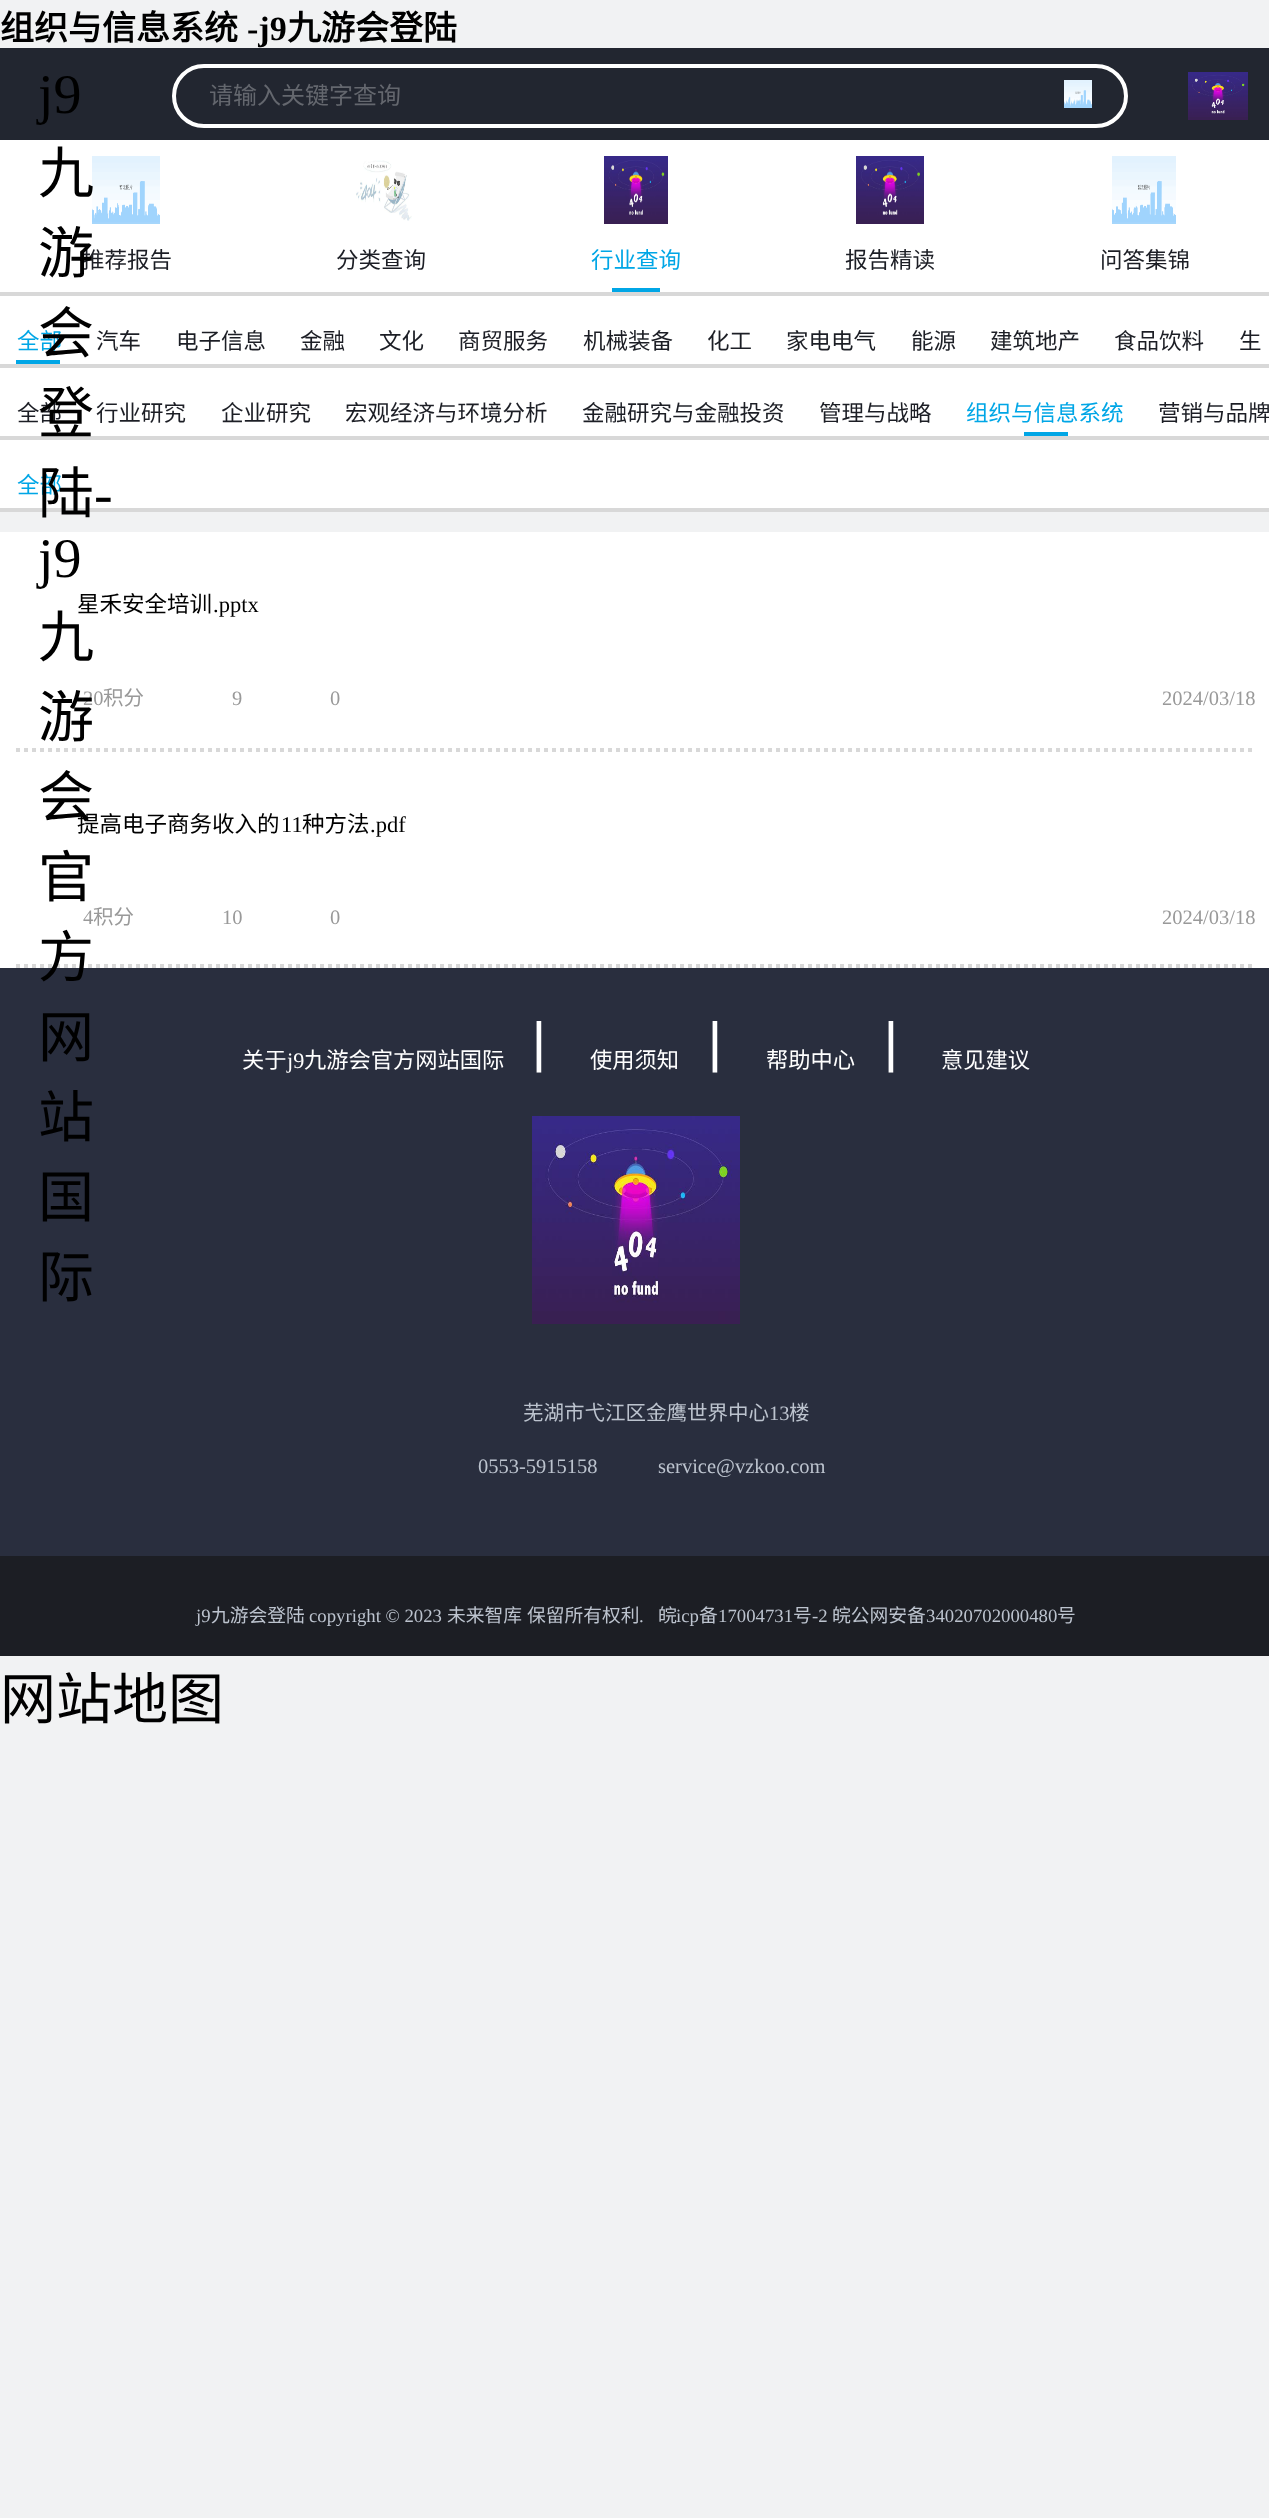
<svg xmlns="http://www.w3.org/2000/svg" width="1269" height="2518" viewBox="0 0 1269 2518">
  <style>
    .t1 { font: bold 34px Noto Sans CJK SC; fill: #000; }
    .t2 { font: bold 34px Liberation Serif; fill: #000; }
    .t3 { font: 56px Liberation Serif; fill: #000; }
    .t4 { font: 56px Noto Sans CJK SC; fill: #000; }
    .t5 { font: 22.5px Noto Sans CJK SC; fill: #1c1e25; }
    .t6 { font: 22.5px Noto Sans CJK SC; fill: #00a6e6; }
    .t7 { font: 20.5px Liberation Serif; fill: #999; }
    .t8 { font: 22.5px Noto Sans CJK SC; fill: #000; }
    .t9 { font: 24px Noto Sans CJK SC; fill: #64676e; }
    .t10 { font: 22.5px Liberation Serif; fill: #000; }
    .t11 { font: 20.5px Noto Sans CJK SC; fill: #999; }
    .t12 { font: 22.25px Noto Sans CJK SC; fill: #fff; }
    .t13 { font: 22.25px Liberation Serif; fill: #fff; }
    .t14 { font: 56px Noto Sans CJK SC; fill: #fff; }
    .t15 { font: 20.5px Noto Sans CJK SC; fill: #bcc3ce; }
    .t16 { font: 20.5px Liberation Serif; fill: #bcc3ce; }
    .t17 { font: 18.75px Liberation Serif; fill: #bcc3ce; }
    .t18 { font: 18.75px Noto Sans CJK SC; fill: #bcc3ce; }
  </style>
  <rect width="100%" height="100%" fill="#f1f2f3"/>
  <text x="0" y="40" class="t1">组织与信息系统</text>
  <text x="247" y="40" class="t2">-j9</text>
  <text x="287" y="40" class="t1">九游会登陆</text>
  <rect x="0" y="48" width="1269" height="92" fill="#222630"/>
  <text x="38" y="113" class="t3">j9</text>
  <rect x="0" y="140" width="1269" height="368" fill="#fff"/>
  <image x="92" y="156" width="68" height="68" href="images/3.png"/>
  <text x="38" y="193" class="t4">九</text>
  <text x="82" y="268" class="t5">推荐报告</text>
  <text x="38" y="273" class="t4">游</text>
  <text x="17" y="349" class="t6">全部</text>
  <text x="38" y="353" class="t4">会</text>
  <rect x="0" y="436" width="1269" height="4" fill="#d8d8d8"/>
  <text x="17" y="421" class="t5">全部</text>
  <text x="38" y="433" class="t4">登</text>
  <rect x="0" y="508" width="1269" height="4" fill="#d8d8d8"/>
  <text x="17" y="493" class="t6">全部</text>
  <text x="38" y="513" class="t4">陆</text>
  <text x="94" y="513" class="t3">-</text>
  <rect x="0" y="532" width="1269" height="436" fill="#fff"/>
  <text x="38" y="577" class="t3">j9</text>
  <text x="38" y="657" class="t4">九</text>
  <text x="83" y="705" class="t7">20</text>
  <text x="38" y="737" class="t4">游</text>
  <text x="77" y="832" class="t8">提高电子商务收入的</text>
  <text x="38" y="817" class="t4">会</text>
  <text x="38" y="897" class="t4">官</text>
  <path d="M16 966H1256" fill="none" stroke="#d8d8d8" stroke-width="4" stroke-dasharray="4 4"/>
  <rect x="0" y="968" width="1269" height="588" fill="#292e3e"/>
  <text x="38" y="977" class="t4">方</text>
  <text x="38" y="1057" class="t4">网</text>
  <text x="38" y="1137" class="t4">站</text>
  <text x="38" y="1217" class="t4">国</text>
  <text x="38" y="1297" class="t4">际</text>
  <rect x="174" y="66" width="952" height="60" rx="30" fill="none" stroke="#fff" stroke-width="4"/>
  <text x="209" y="104" class="t9">请输入关键字查询</text>
  <image x="1064" y="80" width="28" height="28" href="images/1.png"/>
  <image x="1188" y="72" width="60" height="48" href="images/2.png"/>
  <rect x="0" y="292" width="1269" height="4" fill="#d8d8d8"/>
  <image x="356" y="160" width="56" height="61" href="images/4.png"/>
  <text x="336" y="268" class="t5">分类查询</text>
  <image x="604" y="156" width="64" height="68" href="images/5.png"/>
  <text x="591" y="268" class="t6">行业查询</text>
  <rect x="612" y="288" width="48" height="4" fill="#00a6e6"/>
  <image x="856" y="156" width="68" height="68" href="images/6.png"/>
  <text x="845" y="268" class="t5">报告精读</text>
  <image x="1112" y="156" width="64" height="68" href="images/7.png"/>
  <text x="1100" y="268" class="t5">问答集锦</text>
  <rect x="0" y="364" width="1269" height="4" fill="#d8d8d8"/>
  <rect x="16" y="360" width="44" height="4" fill="#00a6e6"/>
  <text x="96" y="349" class="t5">汽车</text>
  <text x="176" y="349" class="t5">电子信息</text>
  <text x="300" y="349" class="t5">金融</text>
  <text x="379" y="349" class="t5">文化</text>
  <text x="458" y="349" class="t5">商贸服务</text>
  <text x="583" y="349" class="t5">机械装备</text>
  <text x="707" y="349" class="t5">化工</text>
  <text x="786" y="349" class="t5">家电电气</text>
  <text x="911" y="349" class="t5">能源</text>
  <text x="990" y="349" class="t5">建筑地产</text>
  <text x="1114" y="349" class="t5">食品饮料</text>
  <text x="1239" y="349" class="t5">生</text>
  <text x="96" y="421" class="t5">行业研究</text>
  <text x="221" y="421" class="t5">企业研究</text>
  <text x="345" y="421" class="t5">宏观经济与环境分析</text>
  <text x="582" y="421" class="t5">金融研究与金融投资</text>
  <text x="819" y="421" class="t5">管理与战略</text>
  <text x="966" y="421" class="t6">组织与信息系统</text>
  <rect x="1024" y="432" width="44" height="4" fill="#00a6e6"/>
  <text x="1158" y="421" class="t5">营销与品牌</text>
  <path d="M16 750H1256" fill="none" stroke="#d8d8d8" stroke-width="4" stroke-dasharray="4 4"/>
  <text x="77" y="612" class="t8">星禾安全培训</text>
  <text x="213" y="612" class="t10">.pptx</text>
  <text x="103" y="705" class="t11">积分</text>
  <text x="232" y="705" class="t7">9</text>
  <text x="330" y="705" class="t7">0</text>
  <text x="1162" y="705" class="t7">2024/03/18</text>
  <text x="281" y="832" class="t10">11</text>
  <text x="302" y="832" class="t8">种方法</text>
  <text x="370" y="832" class="t10">.pdf</text>
  <text x="83" y="924" class="t7">4</text>
  <text x="93" y="924" class="t11">积分</text>
  <text x="222" y="924" class="t7">10</text>
  <text x="330" y="924" class="t7">0</text>
  <text x="1162" y="924" class="t7">2024/03/18</text>
  <text x="242" y="1068" class="t12">关于</text>
  <text x="287" y="1068" class="t13">j9</text>
  <text x="304" y="1068" class="t12">九游会官方网站国际</text>
  <text x="511" y="1068" class="t14">丨</text>
  <text x="590" y="1068" class="t12">使用须知</text>
  <text x="687" y="1068" class="t14">丨</text>
  <text x="766" y="1068" class="t12">帮助中心</text>
  <text x="863" y="1068" class="t14">丨</text>
  <text x="941" y="1068" class="t12">意见建议</text>
  <image x="532" y="1116" width="208" height="208" href="images/8.png"/>
  <text x="523" y="1420" class="t15">芜湖市弋江区金鹰世界中心</text>
  <text x="769" y="1420" class="t16">13</text>
  <text x="789" y="1420" class="t15">楼</text>
  <text x="478" y="1473" class="t16">0553-5915158</text>
  <text x="658" y="1473" class="t16">service@vzkoo.com</text>
  <rect x="0" y="1556" width="1269" height="100" fill="#1c1e24"/>
  <text x="196" y="1622" class="t17">j9</text>
  <text x="211" y="1622" class="t18">九游会登陆</text>
  <text x="309" y="1622" class="t17">copyright © 2023</text>
  <text x="447" y="1622" class="t18">未来智库</text>
  <text x="527" y="1622" class="t18">保留所有权利</text>
  <text x="639" y="1622" class="t17">.</text>
  <text x="658" y="1622" class="t18">皖</text>
  <text x="676" y="1622" class="t17">icp</text>
  <text x="699" y="1622" class="t18">备</text>
  <text x="718" y="1622" class="t17">17004731</text>
  <text x="793" y="1622" class="t18">号</text>
  <text x="812" y="1622" class="t17">-2</text>
  <text x="832" y="1622" class="t18">皖公网安备</text>
  <text x="926" y="1622" class="t17">34020702000480</text>
  <text x="1057" y="1622" class="t18">号</text>
  <text x="0" y="1719" class="t4">网站地图</text>
</svg>
